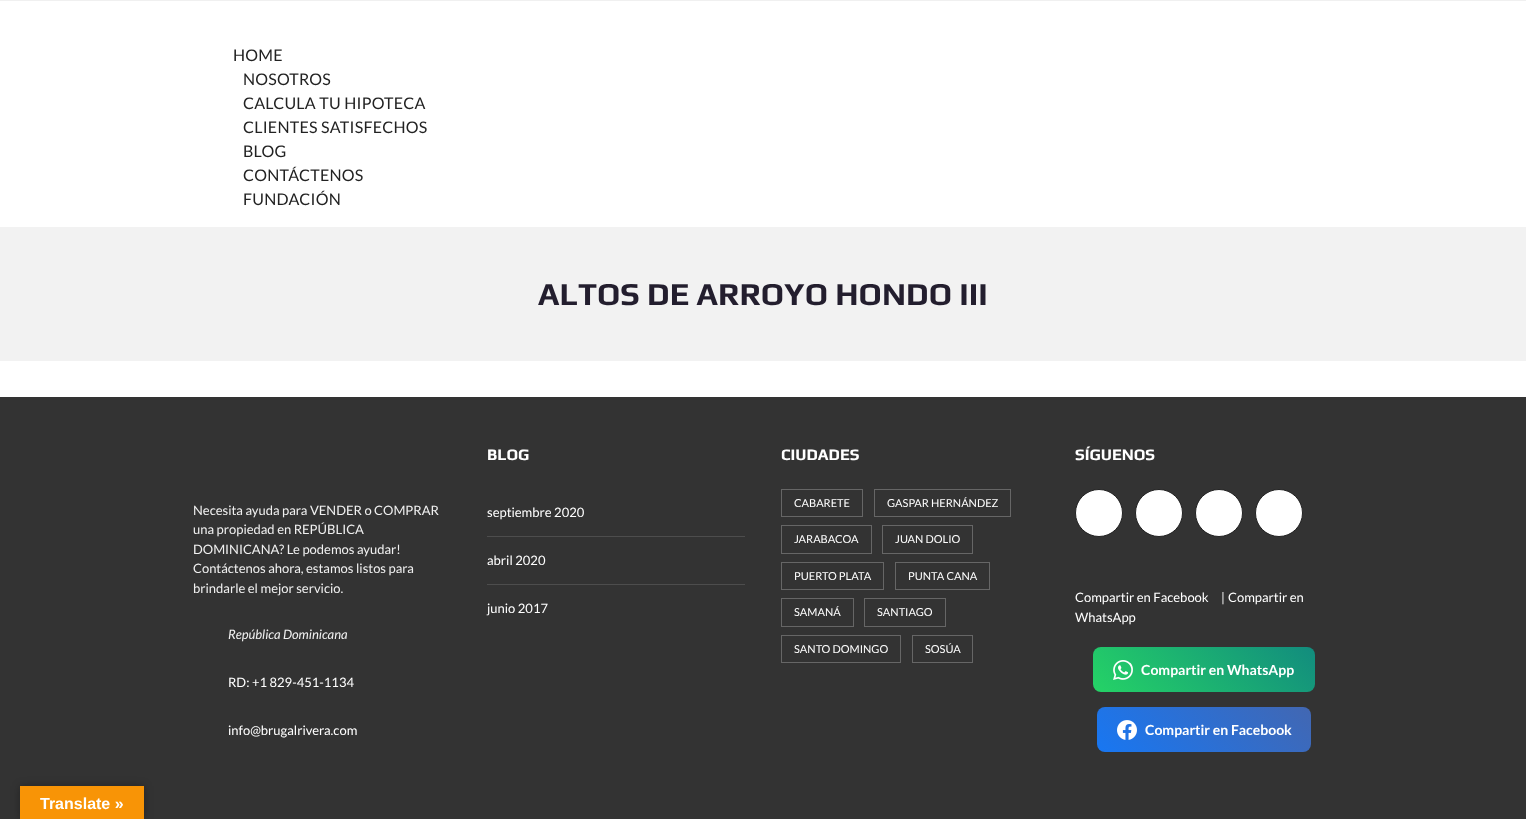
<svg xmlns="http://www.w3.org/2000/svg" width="1526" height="819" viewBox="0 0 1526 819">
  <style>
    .t1 { font: 16px Lato; letter-spacing: 0.25px; fill: #222; }
    .t2 { font: bold 32px Play; fill: #231e2e; }
    .t3 { font: 13px Lato; fill: #f0f0f0; }
    .t4 { font: italic 13px Lato; fill: #f0f0f0; }
    .t5 { font: 13px Lato; fill: #fff; }
    .t6 { font: bold 16px Play; fill: #fff; }
    .t7 { font: 11px Lato; fill: #fff; }
    .t8 { font: bold 14px Lato; fill: #fff; }
    .t9 { font: bold 16px Liberation Sans; fill: #fff; }
  </style>
  <defs>
    <linearGradient id="g1" gradientUnits="userSpaceOnUse" x1="1137" y1="736" x2="1271" y2="603"><stop offset="0" stop-color="#25d366"/><stop offset="1" stop-color="#128c7e"/></linearGradient>
    <linearGradient id="g2" gradientUnits="userSpaceOnUse" x1="1139" y1="794" x2="1269" y2="665"><stop offset="0" stop-color="#1877f2"/><stop offset="1" stop-color="#4267b2"/></linearGradient>
  </defs>
  <rect width="100%" height="100%" fill="#fff"/>
  <rect x="0" y="0" width="1526" height="1" fill="#f0f0f0"/>
  <text x="233" y="61" class="t1">HOME</text>
  <text x="243" y="85" class="t1">NOSOTROS</text>
  <text x="243" y="109" class="t1">CALCULA TU HIPOTECA</text>
  <text x="243" y="133" class="t1">CLIENTES SATISFECHOS</text>
  <text x="243" y="157" class="t1">BLOG</text>
  <text x="243" y="181" class="t1">CONTÁCTENOS</text>
  <text x="243" y="205" class="t1">FUNDACIÓN</text>
  <rect x="0" y="227" width="1526" height="134" fill="#f2f2f2"/>
  <text x="538" y="305" class="t2">ALTOS DE ARROYO HONDO III</text>
  <rect x="0" y="397" width="1526" height="422" fill="#333"/>
  <text x="193" y="515" class="t3">Necesita ayuda para VENDER o COMPRAR</text>
  <text x="193" y="534" class="t3">una propiedad en REPÚBLICA</text>
  <text x="193" y="554" class="t3">DOMINICANA? Le podemos ayudar!</text>
  <text x="193" y="573" class="t3">Contáctenos ahora, estamos listos para</text>
  <text x="193" y="593" class="t3">brindarle el mejor servicio.</text>
  <text x="228" y="639" class="t4">República Dominicana</text>
  <text x="228" y="687" class="t5">RD: +1 829-451-1134</text>
  <text x="228" y="735" class="t5">info@brugalrivera.com</text>
  <text x="487" y="460" class="t6">BLOG</text>
  <rect x="487" y="536" width="258" height="1" fill="#4d4d4d"/>
  <text x="487" y="517" class="t5">septiembre 2020</text>
  <rect x="487" y="584" width="258" height="1" fill="#4d4d4d"/>
  <text x="487" y="565" class="t5">abril 2020</text>
  <text x="487" y="613" class="t5">junio 2017</text>
  <text x="781" y="460" class="t6">CIUDADES</text>
  <rect x="781.5" y="489.5" width="81" height="27" fill="none" stroke="#666"/>
  <text x="794" y="507" class="t7">CABARETE</text>
  <rect x="874.5" y="489.5" width="136" height="27" fill="none" stroke="#666"/>
  <text x="887" y="507" class="t7">GASPAR HERNÁNDEZ</text>
  <rect x="781.5" y="525.5" width="90" height="28" fill="none" stroke="#666"/>
  <text x="794" y="543" class="t7">JARABACOA</text>
  <rect x="882.5" y="525.5" width="90" height="28" fill="none" stroke="#666"/>
  <text x="895" y="543" class="t7">JUAN DOLIO</text>
  <rect x="781.5" y="562.5" width="102" height="27" fill="none" stroke="#666"/>
  <text x="794" y="580" class="t7">PUERTO PLATA</text>
  <rect x="895.5" y="562.5" width="94" height="27" fill="none" stroke="#666"/>
  <text x="908" y="580" class="t7">PUNTA CANA</text>
  <rect x="781.5" y="598.5" width="72" height="28" fill="none" stroke="#666"/>
  <text x="794" y="616" class="t7">SAMANÁ</text>
  <rect x="864.5" y="598.5" width="81" height="28" fill="none" stroke="#666"/>
  <text x="877" y="616" class="t7">SANTIAGO</text>
  <rect x="781.5" y="635.5" width="119" height="27" fill="none" stroke="#666"/>
  <text x="794" y="653" class="t7">SANTO DOMINGO</text>
  <rect x="912.5" y="635.5" width="60" height="27" fill="none" stroke="#666"/>
  <text x="925" y="653" class="t7">SOSÚA</text>
  <text x="1075" y="460" class="t6">SÍGUENOS</text>
  <circle cx="1099" cy="513" r="23.5" fill="#fff" stroke="#222"/>
  <circle cx="1159" cy="513" r="23.5" fill="#fff" stroke="#222"/>
  <circle cx="1219" cy="513" r="23.5" fill="#fff" stroke="#222"/>
  <circle cx="1279" cy="513" r="23.5" fill="#fff" stroke="#222"/>
  <text x="1075" y="602" class="t5">Compartir en Facebook</text>
  <text x="1221" y="602" class="t3">|</text>
  <text x="1228" y="602" class="t5">Compartir en</text>
  <text x="1075" y="622" class="t5">WhatsApp</text>
  <rect x="1093" y="647" width="222" height="45" rx="8" fill="url(#g1)"/>
  <image x="1113" y="660" width="20" height="20" href="images/1.png"/>
  <text x="1141" y="675" class="t8">Compartir en WhatsApp</text>
  <rect x="1097" y="707" width="214" height="45" rx="8" fill="url(#g2)"/>
  <image x="1117" y="720" width="20" height="20" href="images/2.png"/>
  <text x="1145" y="735" class="t8">Compartir en Facebook</text>
  <rect x="20" y="786" width="124" height="33" fill="#0000004d" filter="blur(4.5px)"/>
  <rect x="20" y="786" width="124" height="33" fill="#f89406"/>
  <text x="40" y="809" class="t9">Translate »</text>
</svg>
